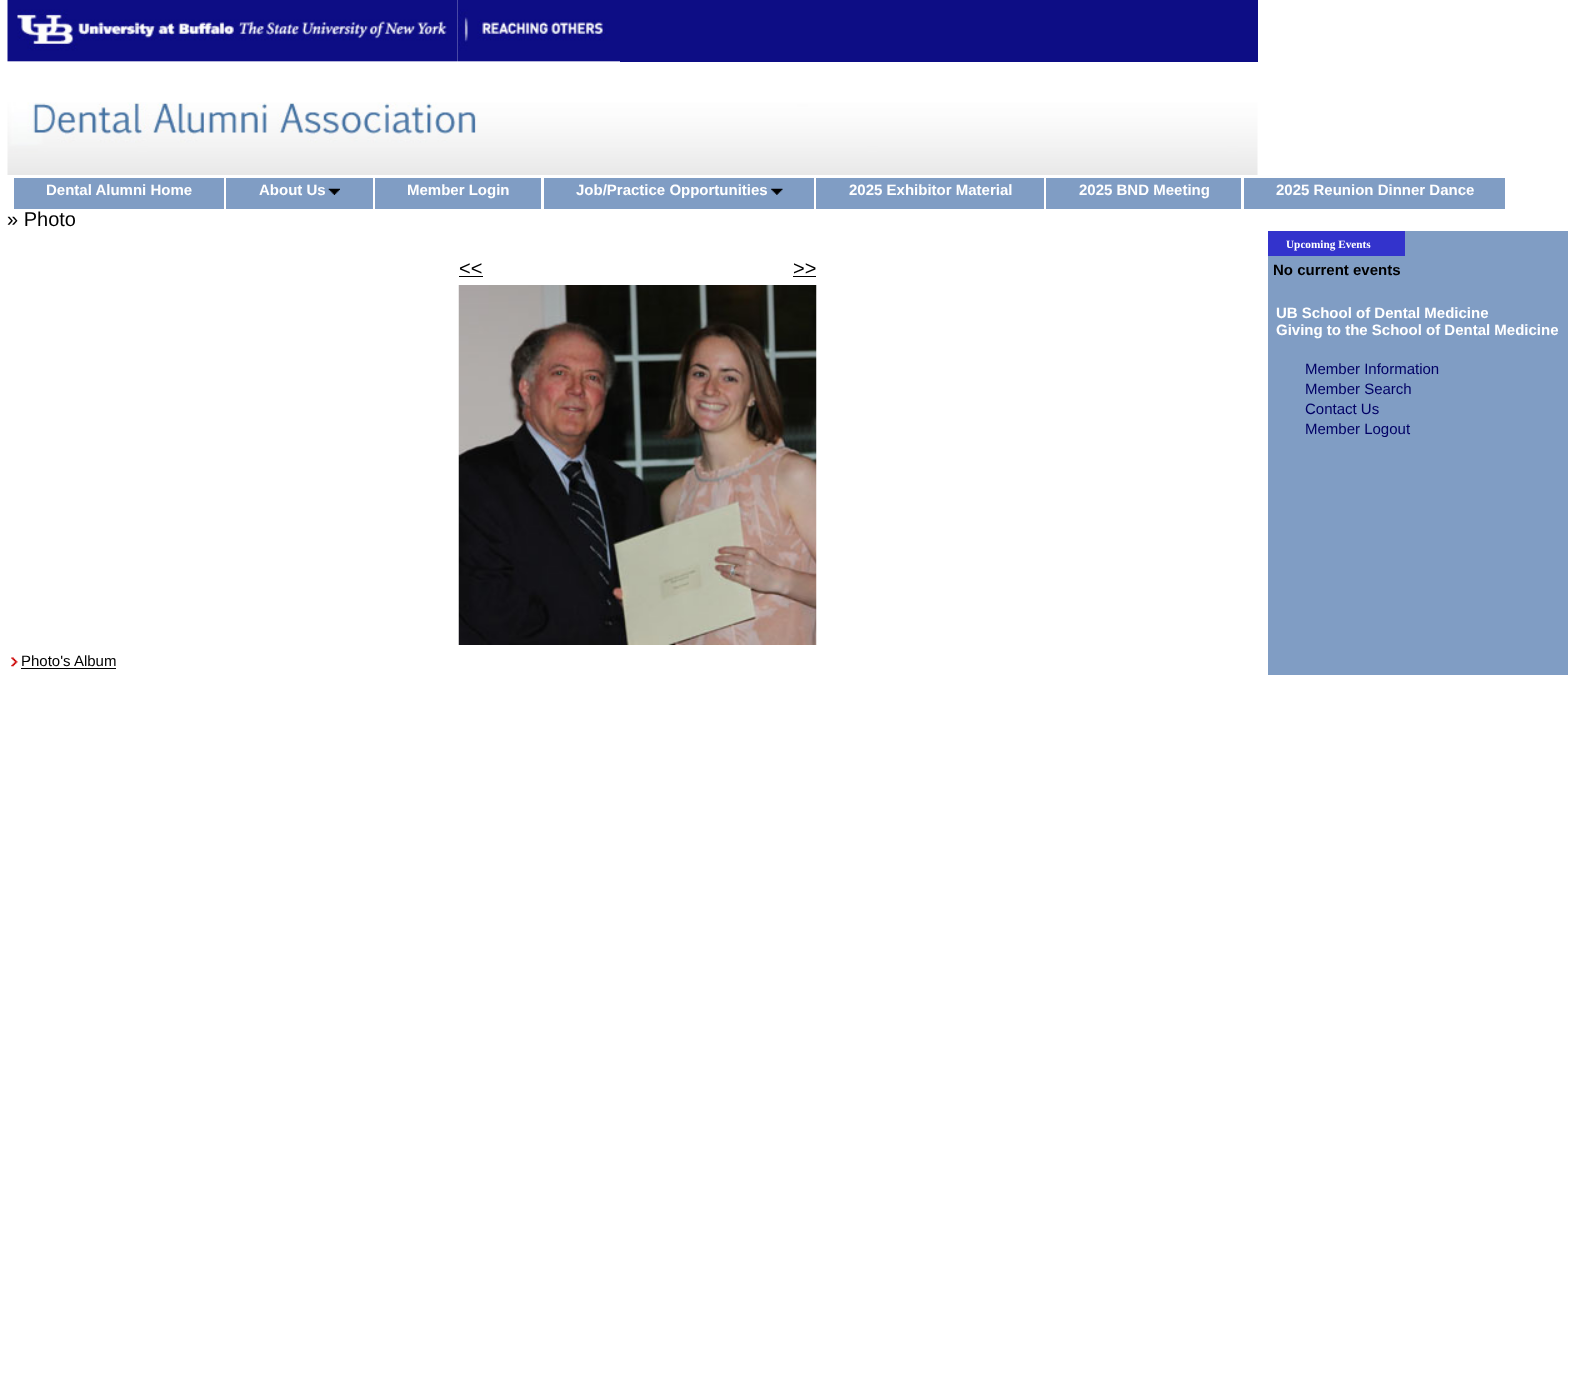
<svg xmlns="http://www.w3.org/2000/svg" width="1575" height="1389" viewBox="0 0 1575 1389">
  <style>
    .t1 { font: bold 15px Liberation Sans; fill: #fff; }
    .t2 { font: 20px Liberation Sans; fill: #000; }
    .t3 { font: 15px Liberation Sans; fill: #000; }
    .t4 { font: bold 11.25px Liberation Serif; fill: #fff; }
    .t5 { font: bold 15px Liberation Sans; fill: #000; }
    .t6 { font: 15px Liberation Sans; fill: #006; }
  </style>
  <rect width="100%" height="100%" fill="#fff"/>
  <image x="7" y="0" width="451" height="62" href="images/1.png"/>
  <image x="457" y="0" width="163" height="62" href="images/2.png"/>
  <rect x="620" y="0" width="638" height="62" fill="#0d0d85"/>
  <image x="7" y="102" width="1251" height="73" href="images/3.png"/>
  <rect x="14" y="178" width="210" height="31" fill="#809dc4"/>
  <text x="46" y="195" class="t1">Dental Alumni Home</text>
  <rect x="226" y="178" width="147" height="31" fill="#809dc4"/>
  <text x="259" y="195" class="t1">About Us</text>
  <image x="328" y="188" width="12" height="7" href="images/4.png"/>
  <rect x="375" y="178" width="166" height="31" fill="#809dc4"/>
  <text x="407" y="195" class="t1">Member Login</text>
  <rect x="544" y="178" width="270" height="31" fill="#809dc4"/>
  <text x="576" y="195" class="t1">Job/Practice Opportunities</text>
  <image x="771" y="188" width="12" height="7" href="images/5.png"/>
  <rect x="816" y="178" width="228" height="31" fill="#809dc4"/>
  <text x="849" y="195" class="t1">2025 Exhibitor Material</text>
  <rect x="1046" y="178" width="195" height="31" fill="#809dc4"/>
  <text x="1079" y="195" class="t1">2025 BND Meeting</text>
  <rect x="1244" y="178" width="261" height="31" fill="#809dc4"/>
  <text x="1276" y="195" class="t1">2025 Reunion Dinner Dance</text>
  <text x="7" y="226" class="t2">» Photo</text>
  <text x="459" y="275" class="t2">&lt;&lt;</text>
  <rect x="459" y="276" width="24" height="1" fill="#000"/>
  <text x="793" y="275" class="t2">&gt;&gt;</text>
  <rect x="793" y="276" width="23" height="1" fill="#000"/>
  <image x="458" y="285" width="359" height="360" href="images/6.png"/>
  <image x="11" y="657" width="7" height="10" href="images/7.png"/>
  <text x="21" y="666" class="t3">Photo's Album</text>
  <rect x="21" y="668" width="95" height="1" fill="#000"/>
  <rect x="1268" y="231" width="300" height="444" fill="#809dc4"/>
  <rect x="1268" y="231" width="137" height="25" fill="#33c"/>
  <text x="1286" y="248" class="t4">Upcoming Events</text>
  <text x="1273" y="275" class="t5">No current events</text>
  <text x="1276" y="318" class="t1">UB School of Dental Medicine</text>
  <text x="1276" y="335" class="t1">Giving to the School of Dental Medicine</text>
  <text x="1305" y="374" class="t6">Member Information</text>
  <text x="1305" y="394" class="t6">Member Search</text>
  <text x="1305" y="414" class="t6">Contact Us</text>
  <text x="1305" y="434" class="t6">Member Logout</text>
</svg>
